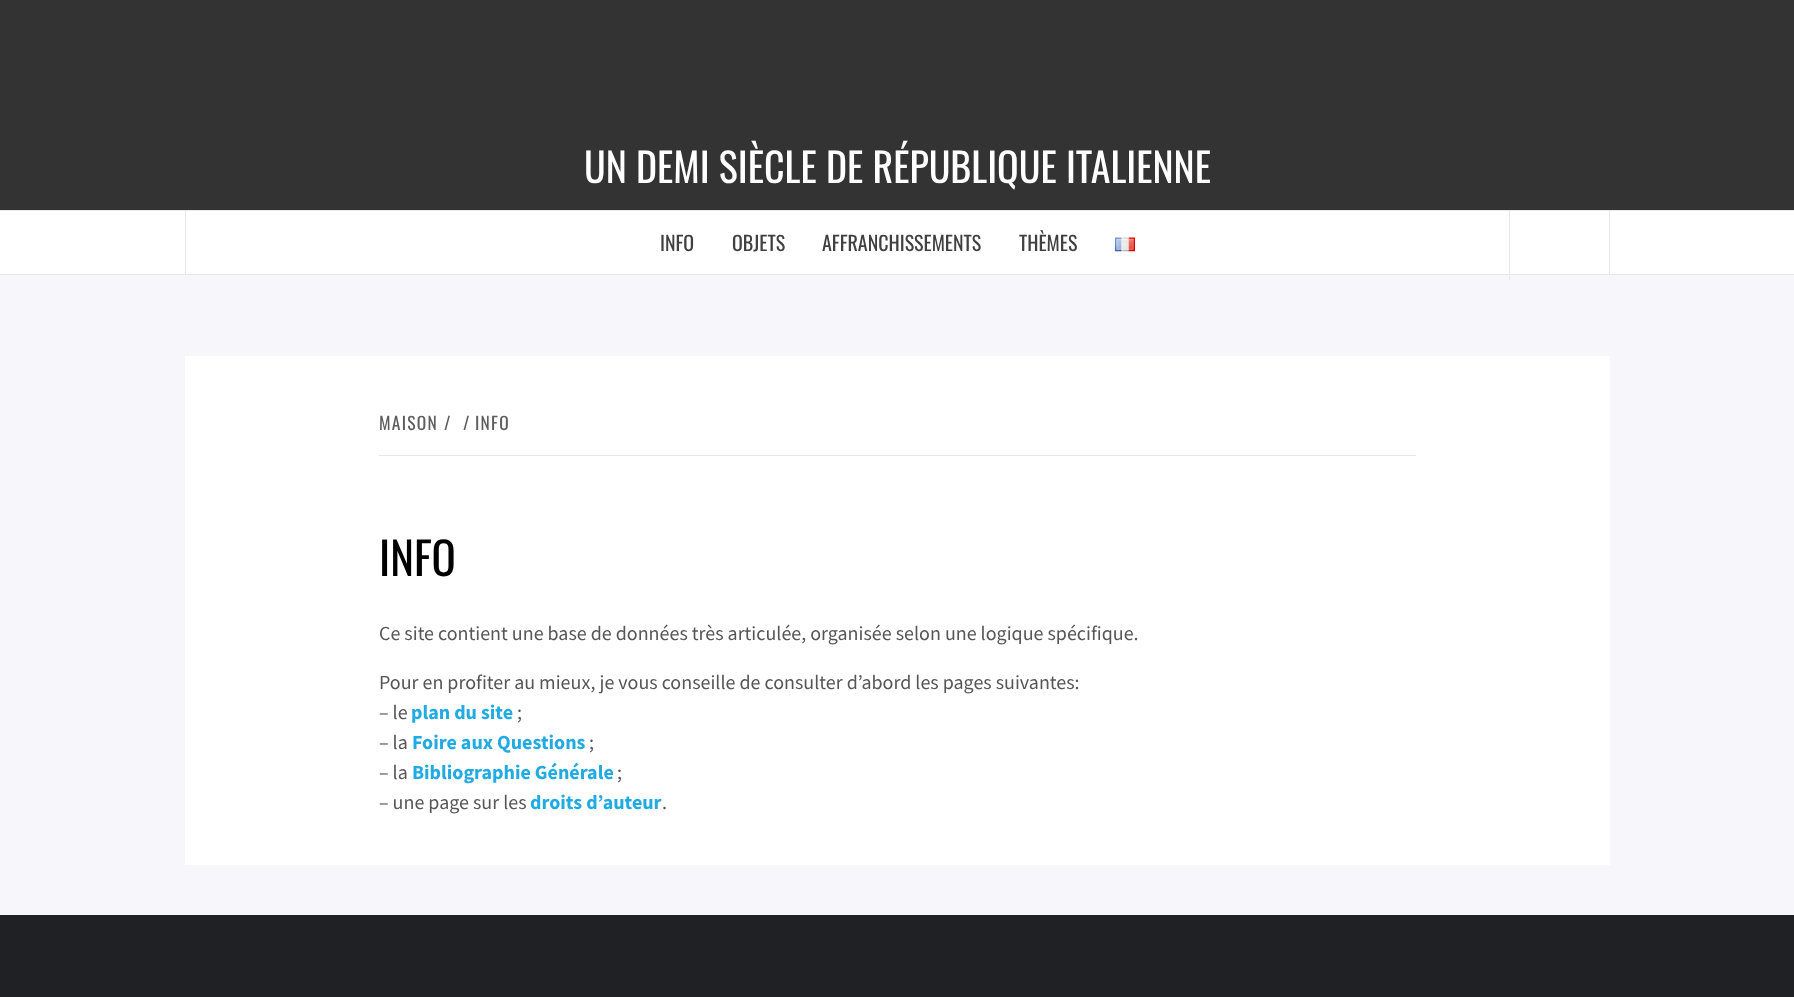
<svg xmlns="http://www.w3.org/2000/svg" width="1794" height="997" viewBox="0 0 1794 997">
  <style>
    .t1 { font: 40px Oswald; fill: #fff; }
    .t2 { font: 20px Oswald; fill: #404040; }
    .t3 { font: 17.5px Oswald; letter-spacing: 1.25px; fill: #5e5e5e; }
    .t4 { font: 45px Oswald; fill: #000; }
    .t5 { font: 20px Source Sans Pro; fill: #565656; }
    .t6 { font: bold 20px Source Sans Pro; fill: #22abe3; }
  </style>
  <rect width="100%" height="100%" fill="#f7f7fb"/>
  <rect x="0" y="0" width="1794" height="210" fill="#333"/>
  <text x="584" y="183" class="t1">UN DEMI SIÈCLE DE RÉPUBLIQUE ITALIENNE</text>
  <rect x="0" y="211" width="1794" height="63" fill="#fff"/>
  <rect x="0" y="210" width="1794" height="1" fill="#e8e8e8"/>
  <rect x="0" y="274" width="1794" height="1" fill="#e8e8e8"/>
  <rect x="1609" y="211" width="1" height="63" fill="#e8e8e8"/>
  <rect x="185" y="211" width="1" height="63" fill="#e8e8e8"/>
  <text x="660" y="251" class="t2">INFO</text>
  <text x="732" y="251" class="t2">OBJETS</text>
  <text x="822" y="251" class="t2">AFFRANCHISSEMENTS</text>
  <text x="1019" y="251" class="t2">THÈMES</text>
  <image x="1115" y="237" width="20" height="15" href="images/1.png"/>
  <rect x="1509" y="211" width="1" height="69" fill="#e8e8e8"/>
  <rect x="185" y="356" width="1425" height="509" fill="#fff"/>
  <rect x="379" y="455" width="1037" height="1" fill="#e8e8e8"/>
  <text x="379" y="430" class="t3">MAISON</text>
  <text x="444" y="430" class="t3">/</text>
  <text x="463" y="430" class="t3">/</text>
  <text x="475" y="430" class="t3">INFO</text>
  <text x="379" y="576" class="t4">INFO</text>
  <text x="379" y="640" class="t5">Ce site contient une base de données très articulée, organisée selon une logique spécifique.</text>
  <text x="379" y="689" class="t5">Pour en profiter au mieux, je vous conseille de consulter d’abord les pages suivantes:</text>
  <text x="379" y="719" class="t5">– le</text>
  <text x="411" y="719" class="t6">plan du site</text>
  <text x="517" y="719" class="t5">;</text>
  <text x="379" y="749" class="t5">– la</text>
  <text x="412" y="749" class="t6">Foire aux Questions</text>
  <text x="589" y="749" class="t5">;</text>
  <text x="379" y="779" class="t5">– la</text>
  <text x="412" y="779" class="t6">Bibliographie Générale</text>
  <text x="617" y="779" class="t5">;</text>
  <text x="379" y="809" class="t5">– une page sur les</text>
  <text x="530" y="809" class="t6">droits d’auteur</text>
  <text x="662" y="809" class="t5">.</text>
  <rect x="0" y="915" width="1794" height="82" fill="#1f2125"/>
</svg>
